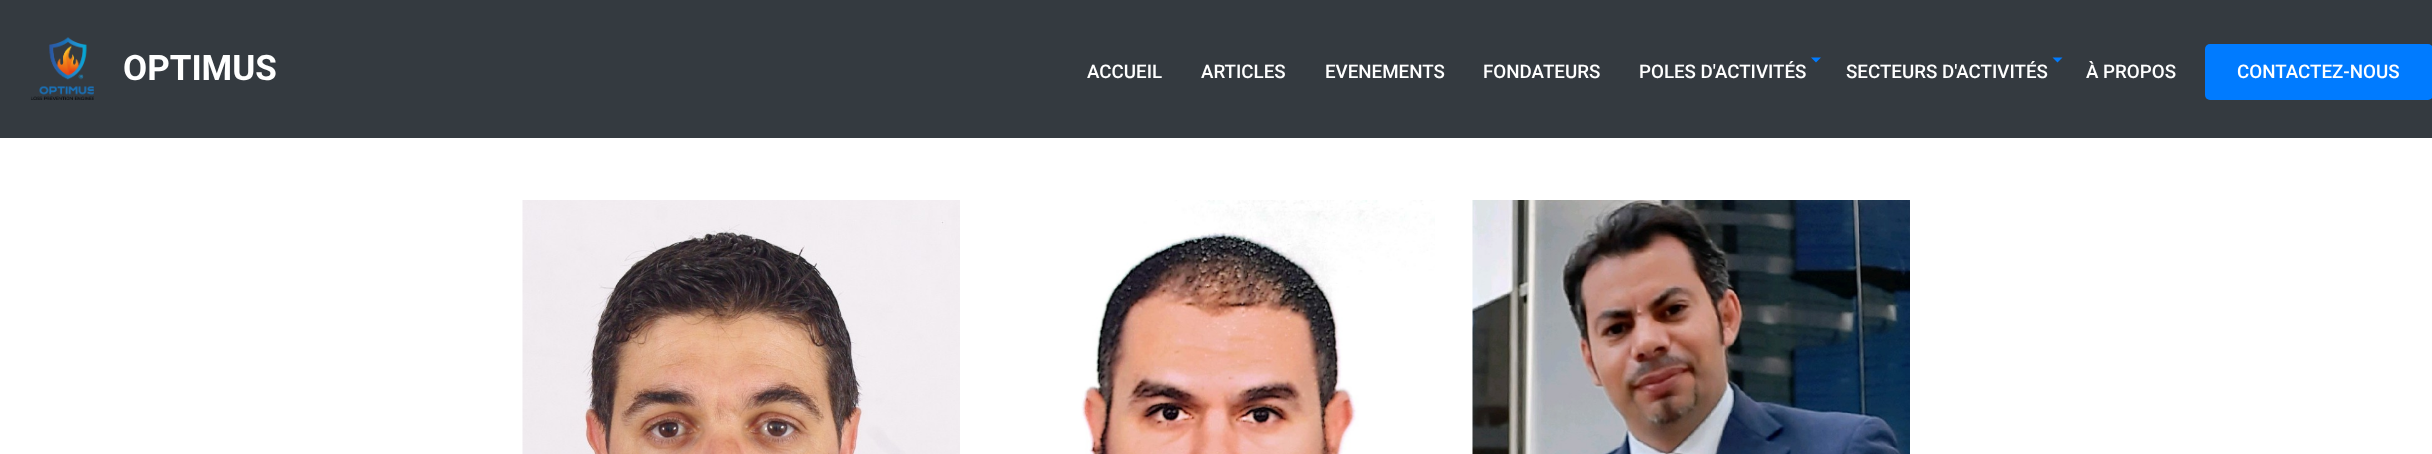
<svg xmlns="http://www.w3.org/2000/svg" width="2432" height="454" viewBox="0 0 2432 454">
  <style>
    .t1 { font: bold 35px Roboto; fill: #fff; }
    .t2 { font: 500 18.75px Roboto; fill: #fff; }
  </style>
  <rect width="100%" height="100%" fill="#fff"/>
  <rect x="0" y="0" width="2432" height="138" fill="#343a40"/>
  <image x="31" y="37" width="63" height="63" href="images/1.png"/>
  <text x="123" y="80" class="t1">OPTIMUS</text>
  <text x="1087" y="78" class="t2">ACCUEIL</text>
  <text x="1201" y="78" class="t2">ARTICLES</text>
  <text x="1325" y="78" class="t2">EVENEMENTS</text>
  <text x="1483" y="78" class="t2">FONDATEURS</text>
  <path d="M1811 57.5H1821L1816 62.5Z" fill="#007bff"/>
  <text x="1639" y="78" class="t2">POLES D'ACTIVITÉS</text>
  <path d="M2052.5 57.5H2062.5L2057.5 62.5Z" fill="#007bff"/>
  <text x="1846" y="78" class="t2">SECTEURS D'ACTIVITÉS</text>
  <text x="2086" y="78" class="t2">À PROPOS</text>
  <rect x="2205" y="44" width="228" height="56" rx="5" fill="#007bff"/>
  <text x="2237" y="78" class="t2">CONTACTEZ-NOUS</text>
  <image x="522" y="200" width="438" height="254" href="images/2.png"/>
  <image x="1081" y="200" width="354" height="254" href="images/3.png"/>
  <image x="1472" y="200" width="438" height="254" href="images/4.png"/>
</svg>
